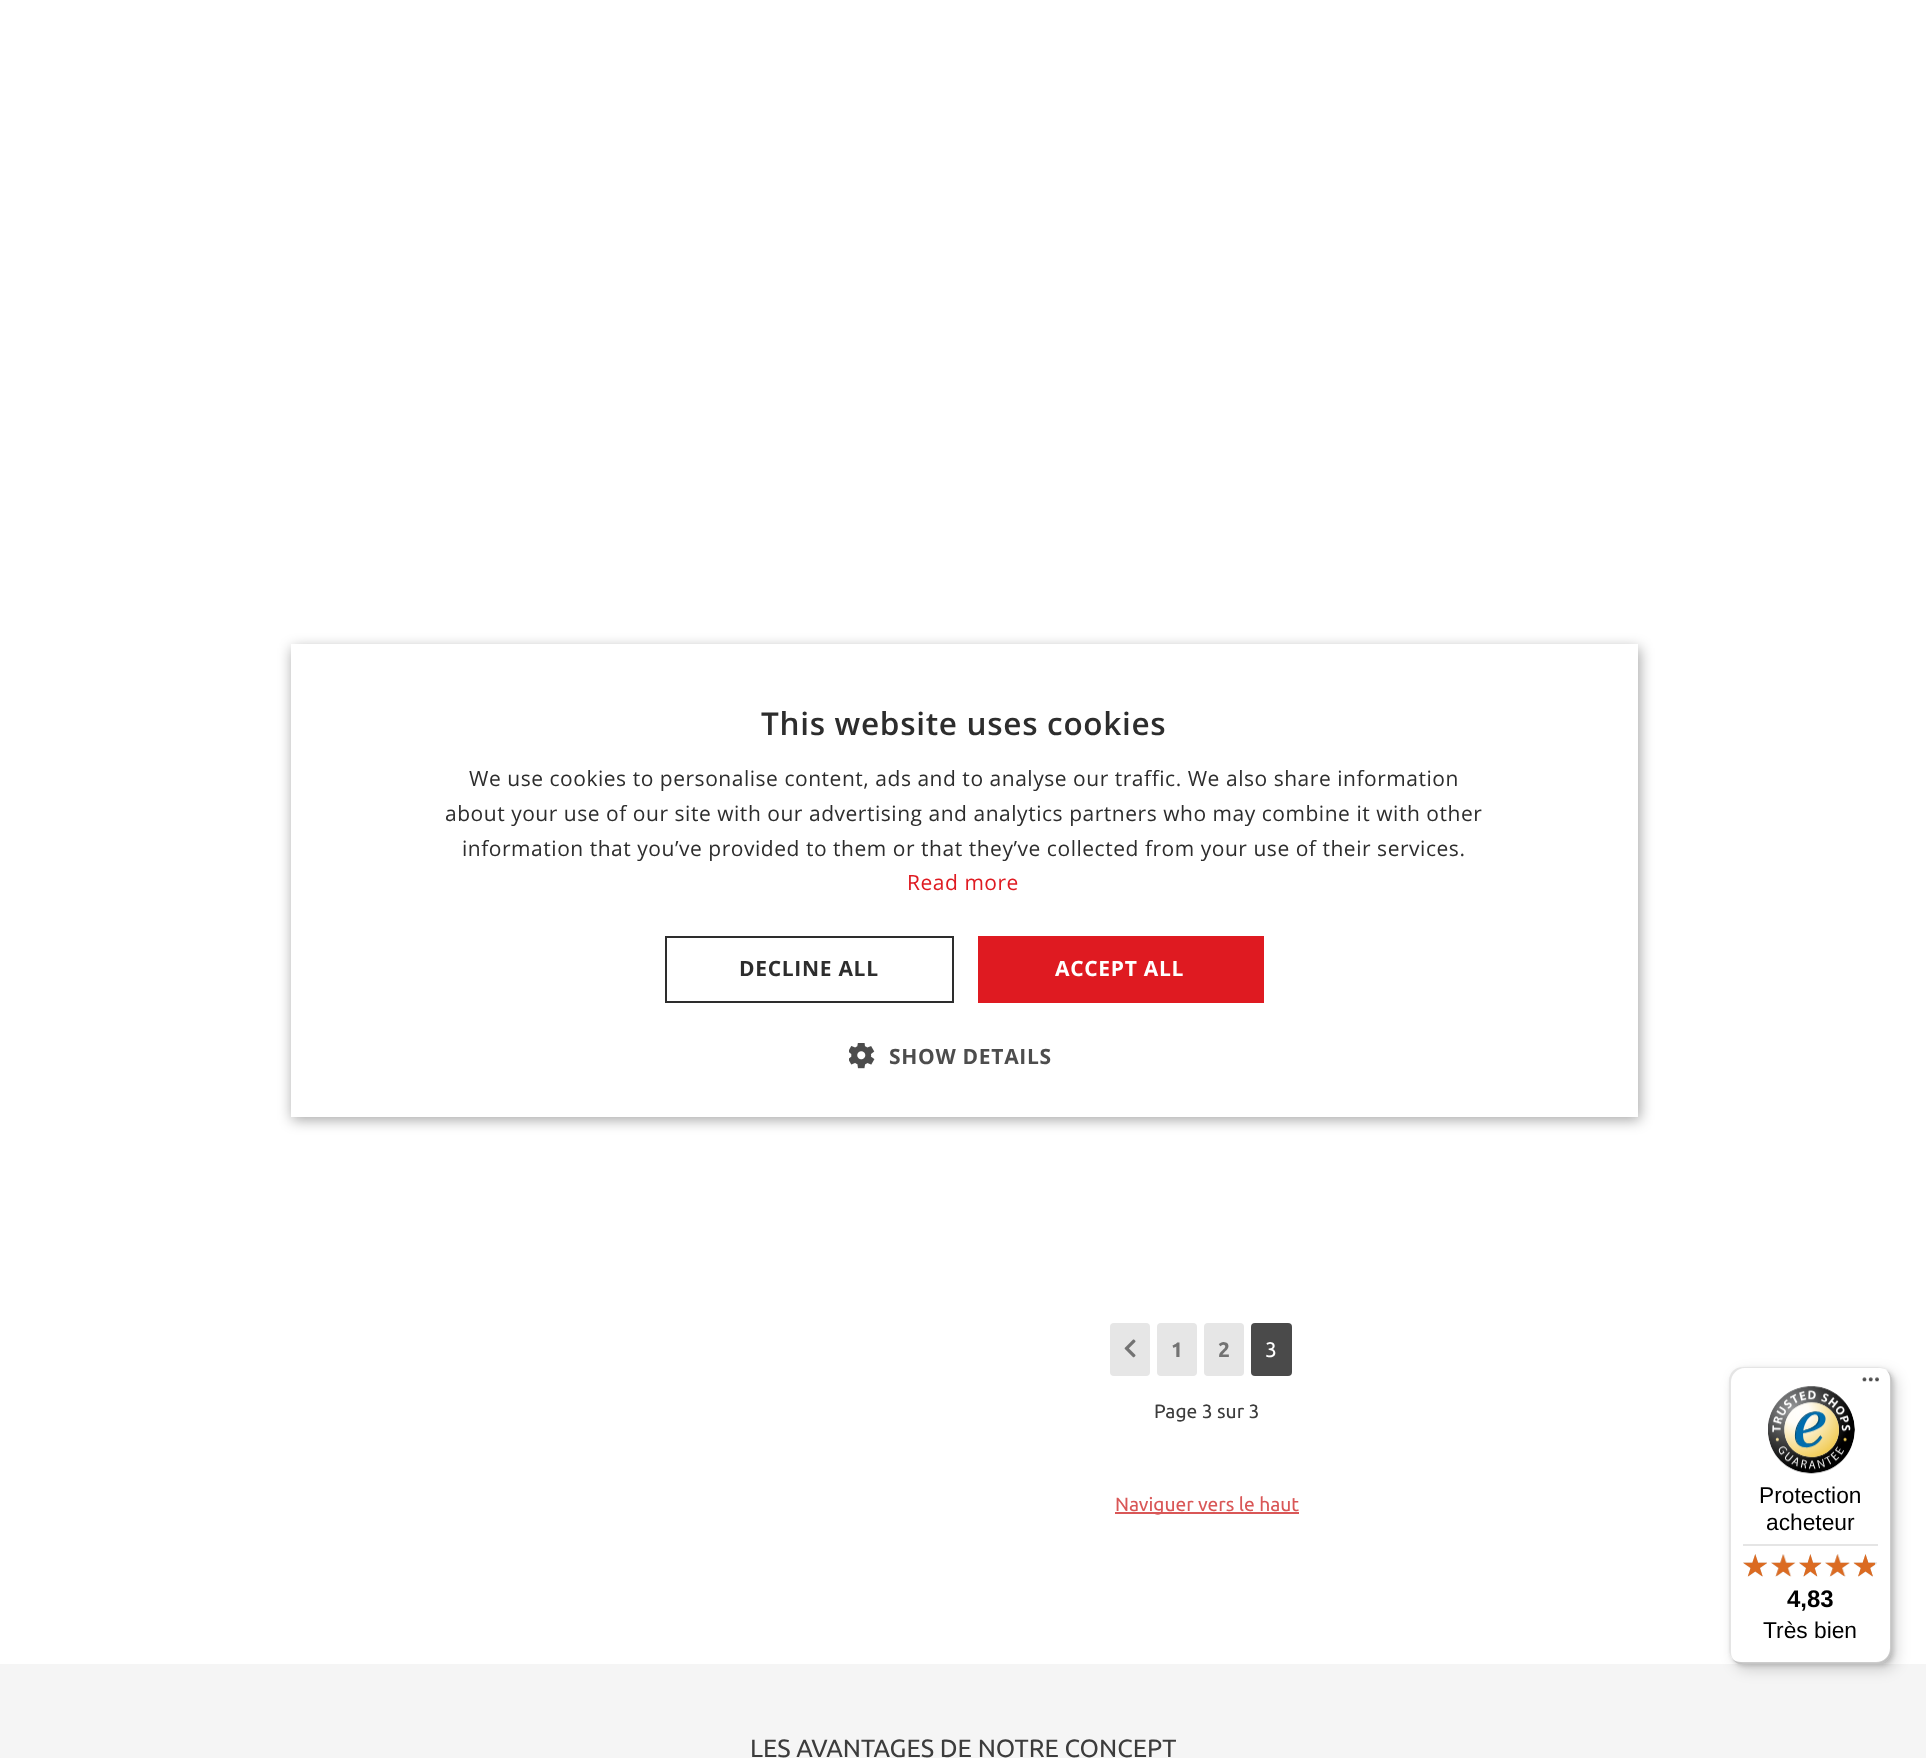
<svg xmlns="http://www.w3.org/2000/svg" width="1926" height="1758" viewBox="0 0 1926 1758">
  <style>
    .t1 { font: 600 31.5px Open Sans; letter-spacing: 0.7px; fill: #2d2d2d; }
    .t2 { font: 21px Open Sans; letter-spacing: 0.53px; fill: #2d2d2d; }
    .t3 { font: 21px Open Sans; letter-spacing: 0.53px; fill: #df1a21; }
    .t4 { font: bold 21px Open Sans; letter-spacing: 0.7px; fill: #2d2d2d; }
    .t5 { font: bold 21px Open Sans; letter-spacing: 0.7px; fill: #fff; }
    .t6 { font: bold 21px Open Sans; letter-spacing: 0.7px; fill: #4d4d4d; }
    .t7 { font: bold 21px Ubuntu; fill: #737373; }
    .t8 { font: 21px Ubuntu; fill: #fff; }
    .t9 { font: 19.25px Ubuntu; fill: #3c3c3c; }
    .t10 { font: 19.25px Ubuntu; fill: #d95757; }
    .t11 { font: 22.75px Liberation Sans; fill: #000; }
    .t12 { font: bold 24px Liberation Sans; fill: #000; }
    .t13 { font: 25px Ubuntu; fill: #3c3c3c; }
  </style>
  <rect width="100%" height="100%" fill="#fff"/>
  <rect x="292" y="648" width="1348" height="472" fill="#00000059" filter="blur(7px)"/>
  <rect x="291" y="644" width="1347" height="473" fill="#fff"/>
  <text x="761" y="735" class="t1">This website uses cookies</text>
  <text x="469" y="786" class="t2">We use cookies to personalise content, ads and to analyse our traffic. We also share information</text>
  <text x="445" y="821" class="t2">about your use of our site with our advertising and analytics partners who may combine it with other</text>
  <text x="462" y="856" class="t2">information that you’ve provided to them or that they’ve collected from your use of their services.</text>
  <text x="907" y="890" class="t3">Read more</text>
  <rect x="666" y="937" width="287" height="65" fill="none" stroke="#2d2d2d" stroke-width="2"/>
  <text x="739" y="976" class="t4">DECLINE ALL</text>
  <rect x="978" y="936" width="286" height="67" fill="#df1a21"/>
  <text x="1055" y="976" class="t5">ACCEPT ALL</text>
  <image x="849" y="1043" width="26" height="26" href="images/1.png"/>
  <text x="889" y="1064" class="t6">SHOW DETAILS</text>
  <rect x="1110" y="1323" width="40" height="53" rx="4" fill="#e6e6e6"/>
  <image x="1124" y="1339" width="12" height="19" href="images/2.png"/>
  <rect x="1157" y="1323" width="40" height="53" rx="4" fill="#e6e6e6"/>
  <text x="1171" y="1357" class="t7">1</text>
  <rect x="1204" y="1323" width="40" height="53" rx="4" fill="#e6e6e6"/>
  <text x="1218" y="1357" class="t7">2</text>
  <rect x="1251" y="1323" width="41" height="53" rx="4" fill="#4a4a4a"/>
  <text x="1265" y="1357" class="t8">3</text>
  <text x="1154" y="1418" class="t9">Page 3 sur 3</text>
  <rect x="1115" y="1512" width="184" height="2" fill="#d95757"/>
  <text x="1115" y="1511" class="t10">Naviguer vers le haut</text>
  <rect x="0" y="1664" width="1926" height="94" fill="#f5f5f5"/>
  <rect x="1734" y="1372" width="163" height="298" rx="14" fill="#00000026" filter="blur(7px)"/>
  <rect x="1731" y="1369" width="163" height="297" rx="14" fill="#00000026" filter="blur(2px)"/>
  <rect x="1729" y="1367" width="163" height="297" rx="14" fill="#fff"/>
  <path d="M1745 1368H1880C1882 1368 1885 1369 1887 1370C1884 1368 1881 1367 1878 1367H1743C1735 1367 1729 1373 1729 1381V1650C1729 1654 1731 1658 1734 1660C1732 1658 1731 1655 1731 1652V1382C1731 1375 1737 1368 1745 1368Z" fill="#0000001a"/>
  <path d="M1732 1658C1734 1662 1738 1664 1743 1664H1878C1886 1664 1892 1658 1892 1650V1381C1892 1377 1890 1373 1887 1371C1889 1373 1890 1376 1890 1379V1648C1890 1656 1884 1662 1876 1662H1741C1738 1662 1734 1661 1732 1658Z" fill="#00000033"/>
  <path d="M1734 1660C1736 1663 1739 1664 1743 1664H1878C1886 1664 1892 1658 1892 1650V1381C1892 1376 1890 1372 1886 1370C1889 1372 1891 1376 1891 1380V1649C1891 1657 1884 1663 1877 1663H1742C1739 1663 1736 1662 1734 1660Z" fill="#32323233"/>
  <path d="M1734 1660C1736 1663 1739 1664 1743 1664H1878C1886 1664 1892 1658 1892 1650V1381C1892 1377 1891 1374 1888 1372C1890 1374 1891 1377 1891 1380V1649C1891 1657 1885 1663 1877 1663H1742C1739 1663 1736 1662 1734 1660Z" fill="#ffffff4d"/>
  <image x="1862" y="1377" width="17" height="5" href="images/3.png"/>
  <image x="1768" y="1386" width="87" height="88" href="images/4.png"/>
  <text x="1759" y="1503" class="t11">Protection</text>
  <text x="1766" y="1530" class="t11">acheteur</text>
  <rect x="1743" y="1544" width="135" height="2" fill="#e5e5e5"/>
  <image x="1743" y="1554" width="24" height="23" href="images/5.png"/>
  <image x="1771" y="1554" width="24" height="23" href="images/6.png"/>
  <image x="1799" y="1554" width="22" height="23" href="images/7.png"/>
  <image x="1825" y="1554" width="25" height="23" href="images/8.png"/>
  <image x="1854" y="1554" width="23" height="23" href="images/9.png"/>
  <image x="1743" y="1554" width="24" height="23" href="images/10.png"/>
  <image x="1771" y="1554" width="25" height="23" href="images/11.png"/>
  <image x="1799" y="1554" width="23" height="23" href="images/12.png"/>
  <image x="1825" y="1554" width="25" height="23" href="images/13.png"/>
  <image x="1853" y="1554" width="22" height="23" href="images/14.png"/>
  <text x="1787" y="1607" class="t12">4,83</text>
  <text x="1763" y="1638" class="t11">Très bien</text>
  <text x="750" y="1757" class="t13">LES AVANTAGES DE NOTRE CONCEPT</text>
</svg>
